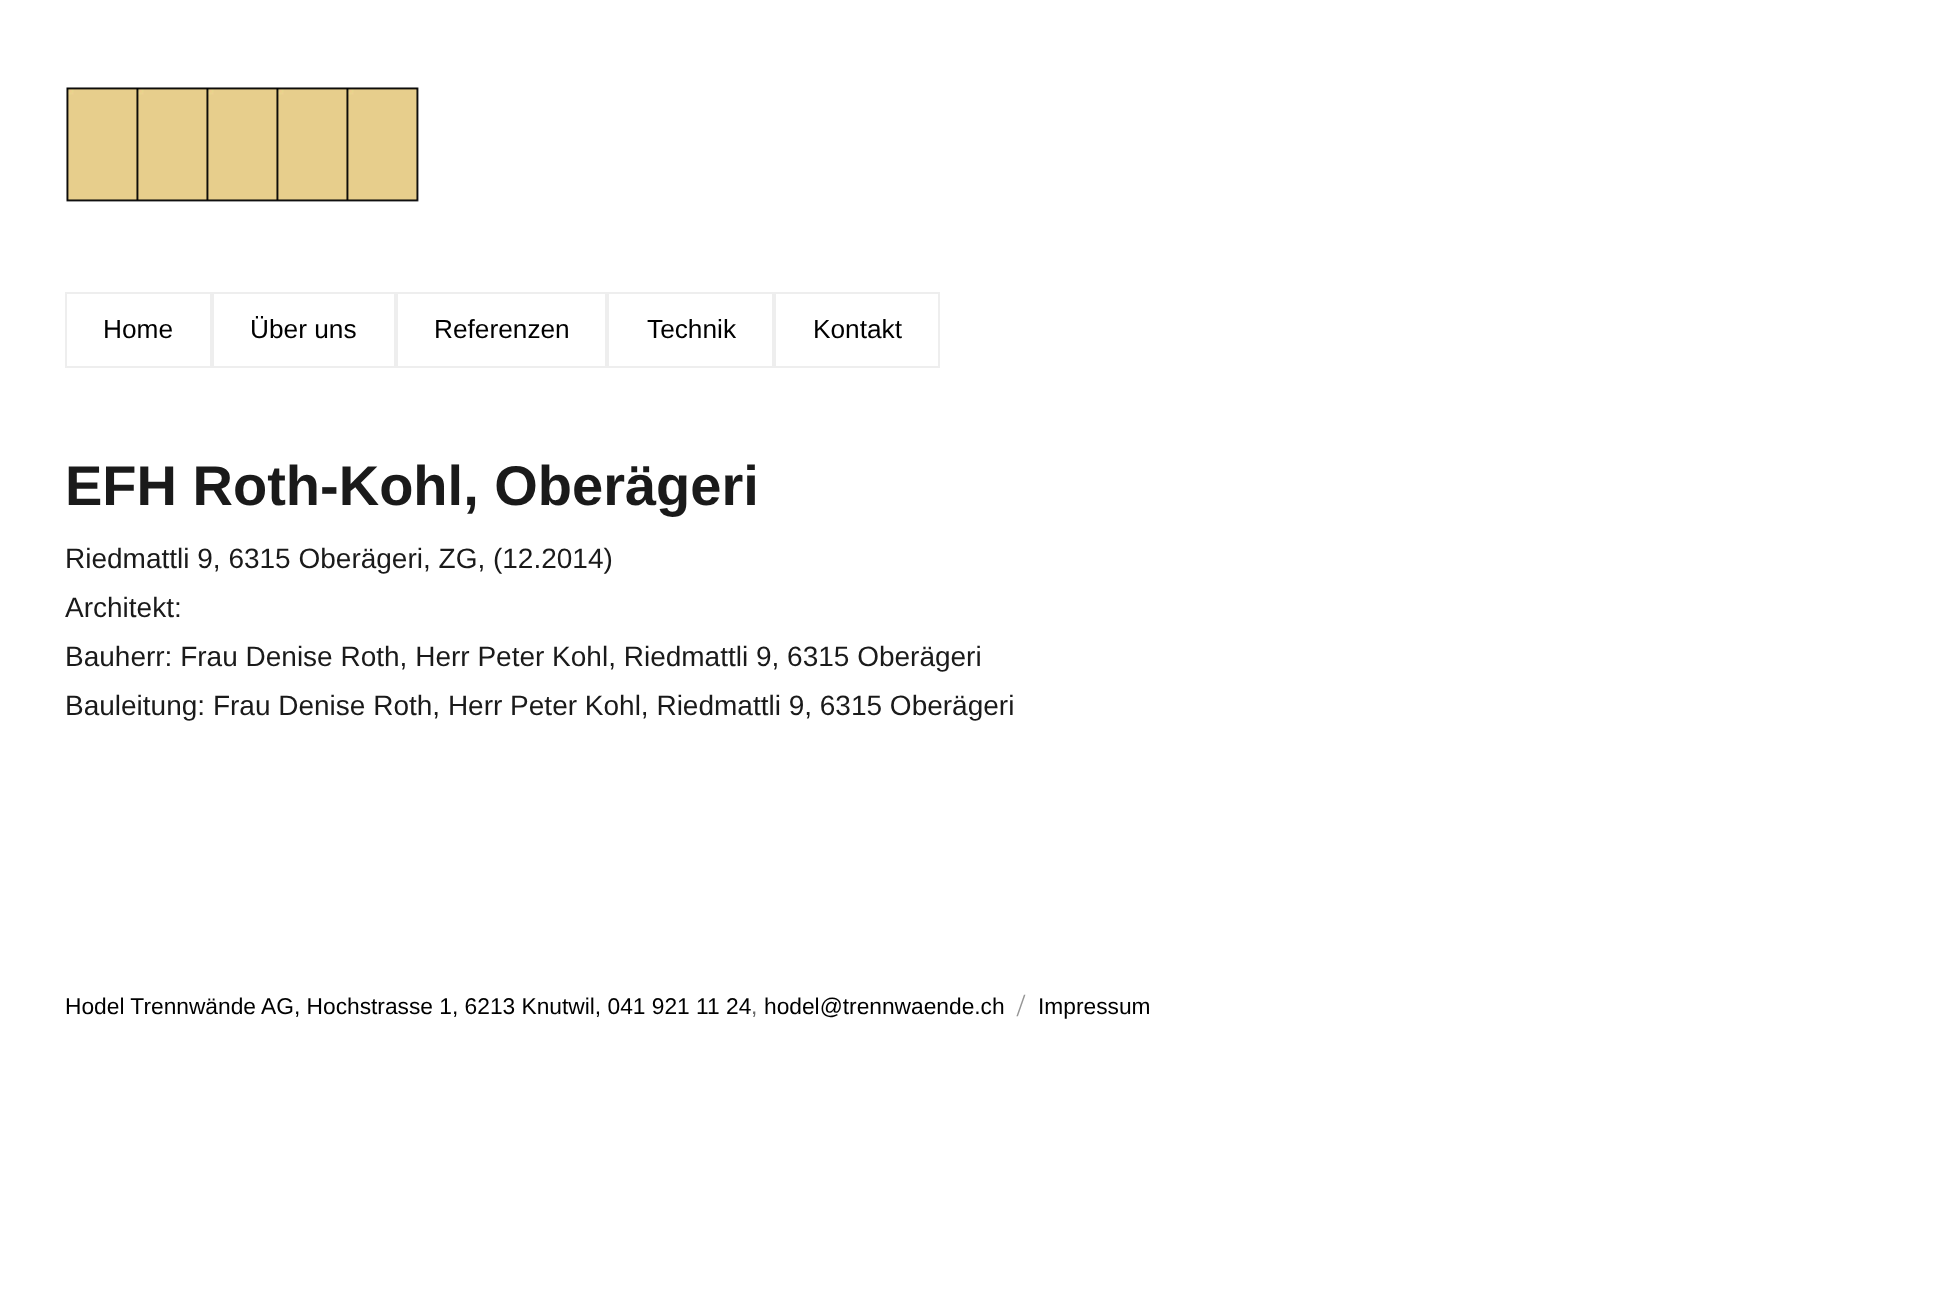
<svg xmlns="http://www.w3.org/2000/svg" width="1934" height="1315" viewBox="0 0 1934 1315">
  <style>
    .t1 { font: 26.25px Liberation Sans; fill: #000; }
    .t2 { font: bold 56px Liberation Sans; fill: #1a1a1a; }
    .t3 { font: 28px Liberation Sans; fill: #1a1a1a; }
    .t4 { font: 22.75px Liberation Sans; fill: #000; }
    .t5 { font: 22.75px Liberation Sans; fill: #686868; }
    .t6 { font: 22.75px Montserrat; fill: #959595; }
  </style>
  <rect width="100%" height="100%" fill="#fff"/>
  <image x="66" y="87" width="353" height="115" href="images/1.png"/>
  <rect x="66" y="293" width="145" height="74" fill="none" stroke="#eee" stroke-width="2"/>
  <text x="103" y="338" class="t1">Home</text>
  <rect x="213" y="293" width="182" height="74" fill="none" stroke="#eee" stroke-width="2"/>
  <text x="250" y="338" class="t1">Über uns</text>
  <rect x="397" y="293" width="209" height="74" fill="none" stroke="#eee" stroke-width="2"/>
  <text x="434" y="338" class="t1">Referenzen</text>
  <rect x="608" y="293" width="165" height="74" fill="none" stroke="#eee" stroke-width="2"/>
  <text x="647" y="338" class="t1">Technik</text>
  <rect x="775" y="293" width="164" height="74" fill="none" stroke="#eee" stroke-width="2"/>
  <text x="813" y="338" class="t1">Kontakt</text>
  <text x="65" y="505" class="t2">EFH Roth-Kohl, Oberägeri</text>
  <text x="65" y="568" class="t3">Riedmattli 9, 6315 Oberägeri, ZG, (12.2014)</text>
  <text x="65" y="617" class="t3">Architekt:</text>
  <text x="65" y="666" class="t3">Bauherr: Frau Denise Roth, Herr Peter Kohl, Riedmattli 9, 6315 Oberägeri</text>
  <text x="65" y="715" class="t3">Bauleitung: Frau Denise Roth, Herr Peter Kohl, Riedmattli 9, 6315 Oberägeri</text>
  <text x="65" y="1014" class="t4">Hodel Trennwände AG, Hochstrasse 1, 6213 Knutwil, 041 921 11 24</text>
  <text x="751" y="1014" class="t5">,</text>
  <text x="764" y="1014" class="t4">hodel@trennwaende.ch</text>
  <text x="1017" y="1014" class="t6">/</text>
  <text x="1038" y="1014" class="t4">Impressum</text>
</svg>
